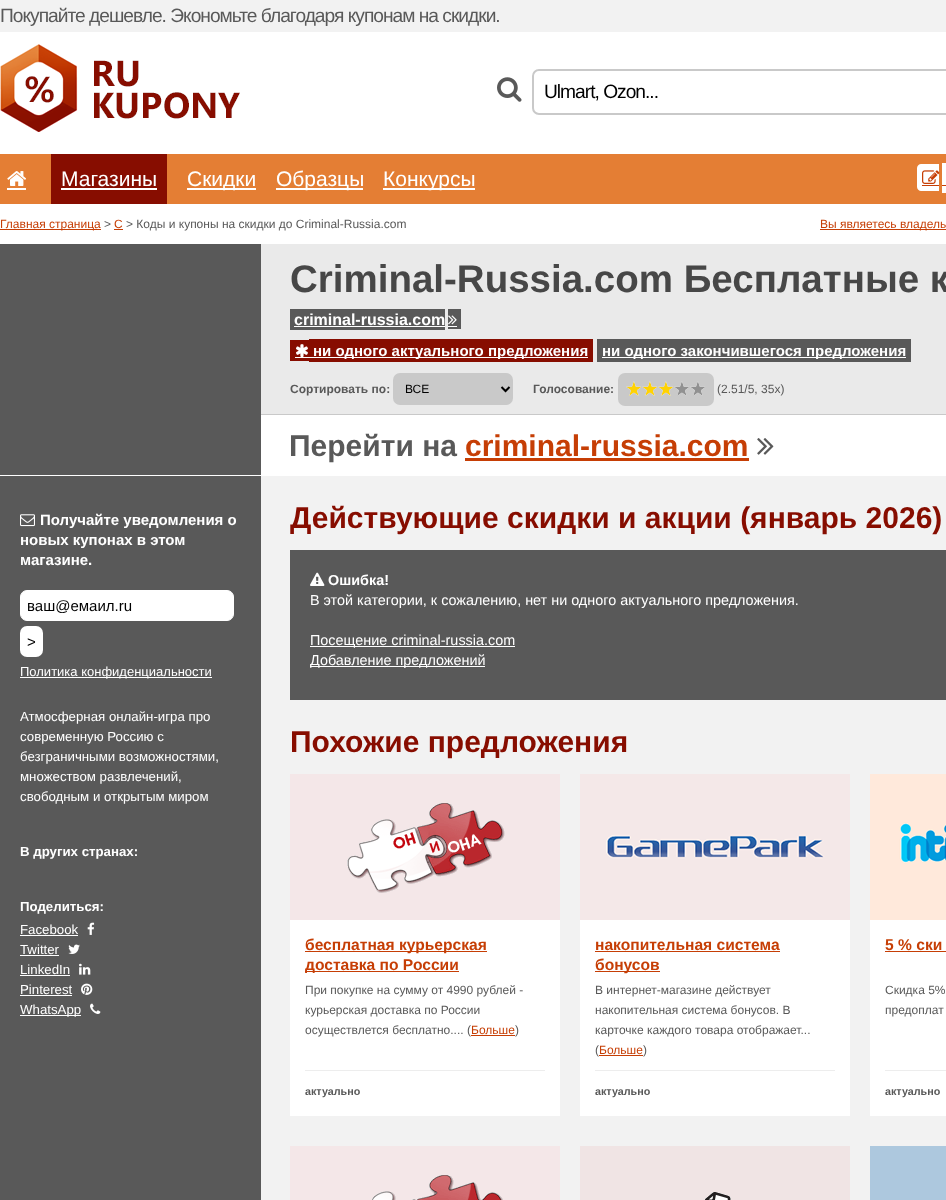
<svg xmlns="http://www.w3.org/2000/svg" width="946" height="1200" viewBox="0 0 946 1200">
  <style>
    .t1 { font: 19.2px Liberation Sans; letter-spacing: -1px; fill: #595959; }
    .t2 { font: 19.2px Liberation Sans; letter-spacing: -1px; fill: #000; }
    .t3 { font: 21px Liberation Sans; fill: #fff; }
    .t4 { font: 12px Liberation Sans; fill: #c63e05; }
    .t5 { font: 12px Liberation Sans; fill: #595959; }
    .t6 { font: bold 38.5px Liberation Sans; fill: #474747; }
    .t7 { font: bold 16px Liberation Sans; fill: #fff; }
    .t8 { font: bold 15px Liberation Sans; fill: #fff; }
    .t9 { font: bold 12px Liberation Sans; fill: #595959; }
    .t10 { font: 12px Liberation Sans; fill: #000; }
    .t11 { font: bold 30px Liberation Sans; fill: #595959; }
    .t12 { font: bold 30px Liberation Sans; fill: #c63e05; }
    .t13 { font: 15px Liberation Sans; fill: #000; }
    .t14 { font: 13px Liberation Sans; fill: #fff; }
    .t15 { font: 13.25px Liberation Sans; fill: #fff; }
    .t16 { font: bold 13.25px Liberation Sans; fill: #fff; }
    .t17 { font: bold 30px Liberation Sans; fill: #870d00; }
    .t18 { font: bold 14.4px Liberation Sans; fill: #fff; }
    .t19 { font: 14.4px Liberation Sans; fill: #fff; }
    .t20 { font: bold 15.6px Liberation Sans; fill: #c63e05; }
    .t21 { font: bold 10.75px Liberation Sans; fill: #595959; }
  </style>
  <rect width="100%" height="100%" fill="#f2f2f2"/>
  <text x="0" y="22" class="t1">Покупайте дешевле. Экономьте благодаря купонам на скидки.</text>
  <rect x="0" y="32" width="946" height="122" fill="#fff"/>
  <image x="0" y="44" width="240" height="88" href="images/1.png"/>
  <image x="497" y="77" width="25" height="25" href="images/2.png"/>
  <rect x="533" y="70" width="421" height="44" rx="6" fill="none" stroke="#c9c9c9" stroke-width="2"/>
  <text x="544" y="98" class="t2">Ulmart, Ozon...</text>
  <rect x="0" y="154" width="946" height="50" fill="#e47e34"/>
  <image x="7" y="171" width="19" height="15" href="images/3.png"/>
  <rect x="7" y="188" width="19" height="2" fill="#fff"/>
  <rect x="51" y="154" width="116" height="50" fill="#870d00"/>
  <text x="61" y="186" class="t3">Магазины</text>
  <rect x="61" y="188" width="96" height="2" fill="#fff"/>
  <rect x="187" y="188" width="69" height="2" fill="#fff"/>
  <text x="187" y="186" class="t3">Скидки</text>
  <rect x="276" y="188" width="87" height="2" fill="#fff"/>
  <text x="276" y="186" class="t3">Образцы</text>
  <rect x="383" y="188" width="92" height="2" fill="#fff"/>
  <text x="383" y="186" class="t3">Конкурсы</text>
  <path d="M921 164H939V191H921C919 191 917 189 917 187V168C917 166 919 164 921 164Z" fill="#fff"/>
  <rect x="942" y="163" width="4" height="30" fill="#fff"/>
  <image x="922" y="170" width="18" height="14" href="images/4.png"/>
  <rect x="922" y="185" width="17" height="1" fill="#c63e05"/>
  <rect x="942" y="185" width="4" height="1" fill="#c63e05"/>
  <rect x="0" y="204" width="946" height="40" fill="#fff"/>
  <rect x="0" y="229" width="101" height="1" fill="#c63e05"/>
  <text x="0" y="228" class="t4">Главная страница</text>
  <text x="104" y="228" class="t5">&gt;</text>
  <text x="114" y="228" class="t4">C</text>
  <rect x="114" y="229" width="9" height="1" fill="#c63e05"/>
  <text x="126" y="228" class="t5">&gt; Коды и купоны на скидки до Criminal-Russia.com</text>
  <rect x="820" y="229" width="126" height="1" fill="#c63e05"/>
  <text x="820" y="228" class="t4">Вы являетесь владель</text>
  <rect x="261" y="244" width="685" height="170" fill="#eaeaea"/>
  <rect x="261" y="414" width="685" height="1" fill="#c9c9c9"/>
  <text x="290" y="292" class="t6">Criminal-Russia.com Бесплатные к</text>
  <rect x="290" y="309" width="155" height="21" fill="#595959"/>
  <text x="294" y="325" class="t7">criminal-russia.com</text>
  <rect x="448" y="309" width="13" height="20" fill="#595959"/>
  <rect x="294" y="326" width="151" height="1" fill="#fff"/>
  <rect x="448" y="326" width="9" height="1" fill="#fff"/>
  <image x="448" y="315" width="9" height="10" href="images/5.png"/>
  <rect x="290" y="340" width="19" height="21" fill="#870d00"/>
  <image x="296" y="344" width="12" height="13" href="images/6.png"/>
  <rect x="309" y="339" width="284" height="23" fill="#870d00"/>
  <rect x="295" y="357" width="293" height="1" fill="#fff"/>
  <text x="313" y="356" class="t8">ни одного актуального предложения</text>
  <rect x="597" y="339" width="314" height="23" fill="#595959"/>
  <rect x="602" y="357" width="304" height="1" fill="#fff"/>
  <text x="602" y="356" class="t8">ни одного закончившегося предложения</text>
  <text x="290" y="393" class="t9">Сортировать по:</text>
  <rect x="393" y="373" width="120" height="32" rx="7" fill="#c9c9c9"/>
  <path d="M501.5 387L505.5 391L509.5 387" fill="none" stroke="#000" stroke-width="2"/>
  <text x="405" y="393" class="t10">ВСЕ</text>
  <text x="533" y="393" class="t9">Голосование:</text>
  <rect x="618" y="373" width="96" height="33" rx="7" fill="#c9c9c9"/>
  <image x="626" y="381" width="15" height="15" href="images/7.png"/>
  <image x="642" y="381" width="15" height="15" href="images/7.png"/>
  <image x="658" y="381" width="15" height="15" href="images/7.png"/>
  <image x="674" y="381" width="15" height="15" href="images/8.png"/>
  <image x="690" y="381" width="15" height="15" href="images/8.png"/>
  <text x="717" y="393" class="t5">(2.51/5, 35x)</text>
  <rect x="0" y="415" width="946" height="61" fill="#fff"/>
  <rect x="0" y="244" width="261" height="231" fill="#595959"/>
  <text x="289" y="456" class="t11">Перейти на</text>
  <text x="465" y="456" class="t12">criminal-russia.com</text>
  <rect x="465" y="458" width="284" height="3" fill="#c63e05"/>
  <image x="757" y="438" width="17" height="17" href="images/9.png"/>
  <rect x="0" y="476" width="261" height="724" fill="#595959"/>
  <image x="20" y="514" width="15" height="13" href="images/10.png"/>
  <text x="40" y="525" class="t8">Получайте уведомления о</text>
  <text x="20" y="545" class="t8">новых купонах в этом</text>
  <text x="20" y="565" class="t8">магазине.</text>
  <rect x="20.5" y="590.5" width="213" height="30" rx="6.5" fill="#fff" stroke="#fff"/>
  <text x="27" y="611" class="t13">ваш@емаил.ru</text>
  <rect x="20" y="626" width="23" height="31" rx="7" fill="#fff"/>
  <text x="27" y="647" class="t13">&gt;</text>
  <rect x="20" y="677" width="192" height="1" fill="#fff"/>
  <text x="20" y="676" class="t14">Политика конфиденциальности</text>
  <text x="20" y="721" class="t15">Атмосферная онлайн-игра про</text>
  <text x="20" y="741" class="t15">современную Россию с</text>
  <text x="20" y="761" class="t15">безграничными возможностями,</text>
  <text x="20" y="781" class="t15">множеством развлечений,</text>
  <text x="20" y="801" class="t15">свободным и открытым миром</text>
  <text x="20" y="856" class="t16">В других странах:</text>
  <text x="20" y="911" class="t16">Поделиться:</text>
  <text x="20" y="934" class="t15">Facebook</text>
  <rect x="20" y="935" width="58" height="1" fill="#fff"/>
  <image x="87" y="922" width="8" height="13" href="images/11.png"/>
  <text x="20" y="954" class="t15">Twitter</text>
  <rect x="20" y="955" width="39" height="1" fill="#fff"/>
  <image x="68" y="944" width="12" height="10" href="images/12.png"/>
  <text x="20" y="974" class="t15">LinkedIn</text>
  <rect x="20" y="975" width="50" height="1" fill="#fff"/>
  <image x="79" y="963" width="12" height="12" href="images/13.png"/>
  <text x="20" y="994" class="t15">Pinterest</text>
  <rect x="20" y="995" width="52" height="1" fill="#fff"/>
  <image x="81" y="983" width="12" height="12" href="images/14.png"/>
  <rect x="20" y="1015" width="61" height="1" fill="#fff"/>
  <text x="20" y="1014" class="t15">WhatsApp</text>
  <image x="90" y="1003" width="11" height="11" href="images/15.png"/>
  <text x="290" y="528" class="t17">Действующие скидки и акции (январь 2026)</text>
  <rect x="290" y="550" width="656" height="150" fill="#595959"/>
  <image x="310" y="572" width="15" height="14" href="images/16.png"/>
  <text x="328" y="585" class="t18">Ошибка!</text>
  <text x="310" y="605" class="t19">В этой категории, к сожалению, нет ни одного актуального предложения.</text>
  <rect x="310" y="646" width="205" height="1" fill="#fff"/>
  <text x="310" y="645" class="t19">Посещение criminal-russia.com</text>
  <rect x="310" y="666" width="175" height="1" fill="#fff"/>
  <text x="310" y="665" class="t19">Добавление предложений</text>
  <text x="290" y="752" class="t17">Похожие предложения</text>
  <image x="290" y="774" width="270" height="146" href="images/17.png"/>
  <rect x="290" y="920" width="270" height="196" fill="#fff"/>
  <rect x="305" y="951" width="182" height="1" fill="#c63e05"/>
  <text x="305" y="950" class="t20">бесплатная курьерская</text>
  <rect x="305" y="971" width="154" height="1" fill="#c63e05"/>
  <text x="305" y="970" class="t20">доставка по России</text>
  <text x="305" y="994" class="t5">При покупке на сумму от 4990 рублей -</text>
  <text x="305" y="1014" class="t5">курьерская доставка по России</text>
  <text x="305" y="1034" class="t5">осуществлется бесплатно.... (</text>
  <text x="471" y="1034" class="t4">Больше</text>
  <rect x="471" y="1035" width="44" height="1" fill="#c63e05"/>
  <text x="515" y="1034" class="t5">)</text>
  <rect x="305" y="1070" width="240" height="1" fill="#ededed"/>
  <text x="305" y="1095" class="t21">актуально</text>
  <image x="580" y="774" width="270" height="146" href="images/18.png"/>
  <rect x="580" y="920" width="270" height="196" fill="#fff"/>
  <text x="595" y="950" class="t20">накопительная система</text>
  <rect x="595" y="951" width="185" height="1" fill="#c63e05"/>
  <rect x="595" y="971" width="65" height="1" fill="#c63e05"/>
  <text x="595" y="970" class="t20">бонусов</text>
  <text x="595" y="994" class="t5">В интернет-магазине действует</text>
  <text x="595" y="1014" class="t5">накопительная система бонусов. В</text>
  <text x="595" y="1034" class="t5">карточке каждого товара отображает...</text>
  <text x="595" y="1054" class="t5">(</text>
  <text x="599" y="1054" class="t4">Больше</text>
  <rect x="599" y="1055" width="44" height="1" fill="#c63e05"/>
  <text x="643" y="1054" class="t5">)</text>
  <rect x="595" y="1070" width="240" height="1" fill="#ededed"/>
  <text x="595" y="1095" class="t21">актуально</text>
  <image x="870" y="774" width="76" height="146" href="images/19.png"/>
  <rect x="870" y="920" width="76" height="196" fill="#fff"/>
  <text x="885" y="950" class="t20">5 % ски</text>
  <rect x="885" y="951" width="61" height="1" fill="#c63e05"/>
  <text x="885" y="994" class="t5">Скидка 5%</text>
  <text x="885" y="1014" class="t5">предоплат</text>
  <rect x="885" y="1070" width="61" height="1" fill="#ededed"/>
  <text x="885" y="1095" class="t21">актуально</text>
  <image x="290" y="1146" width="270" height="54" href="images/20.png"/>
  <image x="580" y="1146" width="270" height="54" href="images/21.png"/>
  <rect x="870" y="1146" width="76" height="54" fill="#adc8de"/>
</svg>
